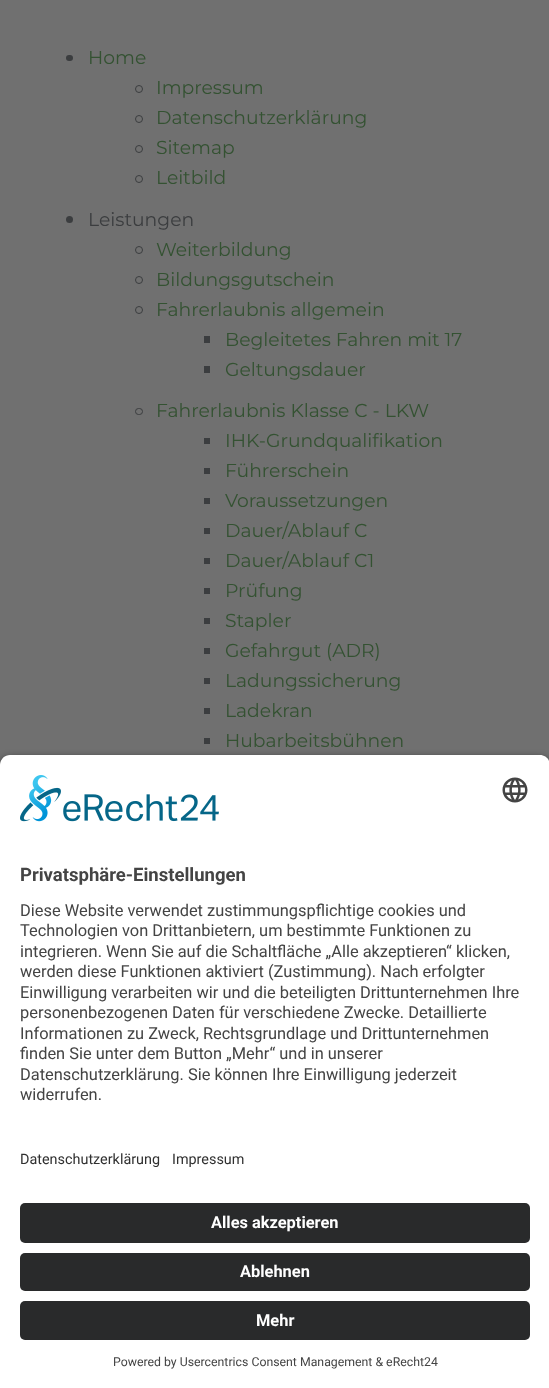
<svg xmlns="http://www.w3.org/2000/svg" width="549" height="1388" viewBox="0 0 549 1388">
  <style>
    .t1 { font: 100 18.75px Montserrat; fill: #345232; }
    .t2 { font: 100 18.75px Montserrat; fill: #3b3d3f; }
    .t3 { font: bold 18.5px Roboto; fill: #444; }
    .t4 { font: 16.4px Roboto; fill: #444; }
    .t5 { font: 14.4px Roboto; fill: #303030; }
    .t6 { font: bold 16.4px Roboto; fill: #fff; }
    .t7 { font: 12.3px Roboto; fill: #444; }
  </style>
  <rect width="100%" height="100%" fill="#707070"/>
  <rect x="66" y="55" width="7" height="6" rx="3" fill="#3b3d3f"/>
  <text x="88" y="64" class="t1">Home</text>
  <circle cx="139" cy="89" r="3.5" fill="none" stroke="#3b3d3f"/>
  <text x="156" y="94" class="t1">Impressum</text>
  <circle cx="139" cy="119" r="3.5" fill="none" stroke="#3b3d3f"/>
  <text x="156" y="124" class="t1">Datenschutzerklärung</text>
  <circle cx="139" cy="149" r="3.5" fill="none" stroke="#3b3d3f"/>
  <text x="156" y="154" class="t1">Sitemap</text>
  <circle cx="139" cy="179" r="3.5" fill="none" stroke="#3b3d3f"/>
  <text x="156" y="184" class="t1">Leitbild</text>
  <circle cx="69.5" cy="219.5" r="3.5" fill="#3b3d3f"/>
  <text x="88" y="226" class="t2">Leistungen</text>
  <circle cx="139" cy="250" r="3.5" fill="none" stroke="#3b3d3f"/>
  <text x="156" y="256" class="t1">Weiterbildung</text>
  <circle cx="139" cy="280" r="3.5" fill="none" stroke="#3b3d3f"/>
  <text x="156" y="286" class="t1">Bildungsgutschein</text>
  <circle cx="139" cy="310" r="3.5" fill="none" stroke="#3b3d3f"/>
  <text x="156" y="316" class="t1">Fahrerlaubnis allgemein</text>
  <rect x="204" y="336" width="6" height="7" fill="#3b3d3f"/>
  <text x="225" y="346" class="t1">Begleitetes Fahren mit 17</text>
  <rect x="204" y="366" width="6" height="7" fill="#3b3d3f"/>
  <text x="225" y="376" class="t1">Geltungsdauer</text>
  <rect x="135.5" y="408.5" width="7" height="6" rx="3" fill="none" stroke="#3b3d3f"/>
  <text x="156" y="417" class="t1">Fahrerlaubnis Klasse C - LKW</text>
  <rect x="204" y="438" width="6" height="6" fill="#3b3d3f"/>
  <text x="225" y="447" class="t1">IHK-Grundqualifikation</text>
  <rect x="204" y="468" width="6" height="6" fill="#3b3d3f"/>
  <text x="225" y="477" class="t1">Führerschein</text>
  <rect x="204" y="498" width="6" height="6" fill="#3b3d3f"/>
  <text x="225" y="507" class="t1">Voraussetzungen</text>
  <rect x="204" y="528" width="6" height="6" fill="#3b3d3f"/>
  <text x="225" y="537" class="t1">Dauer/Ablauf C</text>
  <rect x="204" y="558" width="6" height="6" fill="#3b3d3f"/>
  <text x="225" y="567" class="t1">Dauer/Ablauf C1</text>
  <rect x="204" y="588" width="6" height="6" fill="#3b3d3f"/>
  <text x="225" y="597" class="t1">Prüfung</text>
  <rect x="204" y="618" width="6" height="6" fill="#3b3d3f"/>
  <text x="225" y="627" class="t1">Stapler</text>
  <rect x="204" y="648" width="6" height="6" fill="#3b3d3f"/>
  <text x="225" y="657" class="t1">Gefahrgut (ADR)</text>
  <rect x="204" y="678" width="6" height="6" fill="#3b3d3f"/>
  <text x="225" y="687" class="t1">Ladungssicherung</text>
  <rect x="204" y="708" width="6" height="6" fill="#3b3d3f"/>
  <text x="225" y="717" class="t1">Ladekran</text>
  <rect x="204" y="738" width="6" height="6" fill="#3b3d3f"/>
  <text x="225" y="747" class="t1">Hubarbeitsbühnen</text>
  <rect x="0" y="759" width="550" height="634" rx="10" fill="#000000cc" filter="blur(4.5px)"/>
  <path d="M10 755H540C545.5 755 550 759.5 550 765V1131H0V765C0 759.5 4.5 755 10 755Z" fill="#fff"/>
  <image x="20" y="775" width="199" height="47" href="images/1.png"/>
  <image x="502" y="777" width="26" height="26" href="images/2.png"/>
  <text x="20" y="881" class="t3">Privatsphäre-Einstellungen</text>
  <text x="20" y="916" class="t4">Diese Website verwendet zustimmungspflichtige cookies und</text>
  <text x="20" y="936" class="t4">Technologien von Drittanbietern, um bestimmte Funktionen zu</text>
  <text x="20" y="957" class="t4">integrieren. Wenn Sie auf die Schaltfläche „Alle akzeptieren“ klicken,</text>
  <text x="20" y="977" class="t4">werden diese Funktionen aktiviert (Zustimmung). Nach erfolgter</text>
  <text x="20" y="998" class="t4">Einwilligung verarbeiten wir und die beteiligten Drittunternehmen Ihre</text>
  <text x="20" y="1018" class="t4">personenbezogenen Daten für verschiedene Zwecke. Detaillierte</text>
  <text x="20" y="1039" class="t4">Informationen zu Zweck, Rechtsgrundlage und Drittunternehmen</text>
  <text x="20" y="1059" class="t4">finden Sie unter dem Button „Mehr“ und in unserer</text>
  <text x="20" y="1080" class="t4">Datenschutzerklärung. Sie können Ihre Einwilligung jederzeit</text>
  <text x="20" y="1100" class="t4">widerrufen.</text>
  <rect x="0" y="1131" width="549" height="257" fill="#fff"/>
  <text x="20" y="1164" class="t5">Datenschutzerklärung</text>
  <text x="172" y="1164" class="t5">Impressum</text>
  <rect x="20" y="1203" width="510" height="40" rx="5" fill="#292a2b"/>
  <text x="211" y="1228" class="t6">Alles akzeptieren</text>
  <rect x="20" y="1253" width="510" height="38" rx="5" fill="#292a2b"/>
  <text x="240" y="1277" class="t6">Ablehnen</text>
  <rect x="20" y="1301" width="510" height="39" rx="5" fill="#292a2b"/>
  <text x="256" y="1326" class="t6">Mehr</text>
  <text x="113" y="1366" class="t7">Powered by Usercentrics Consent Management &amp; eRecht24</text>
</svg>
